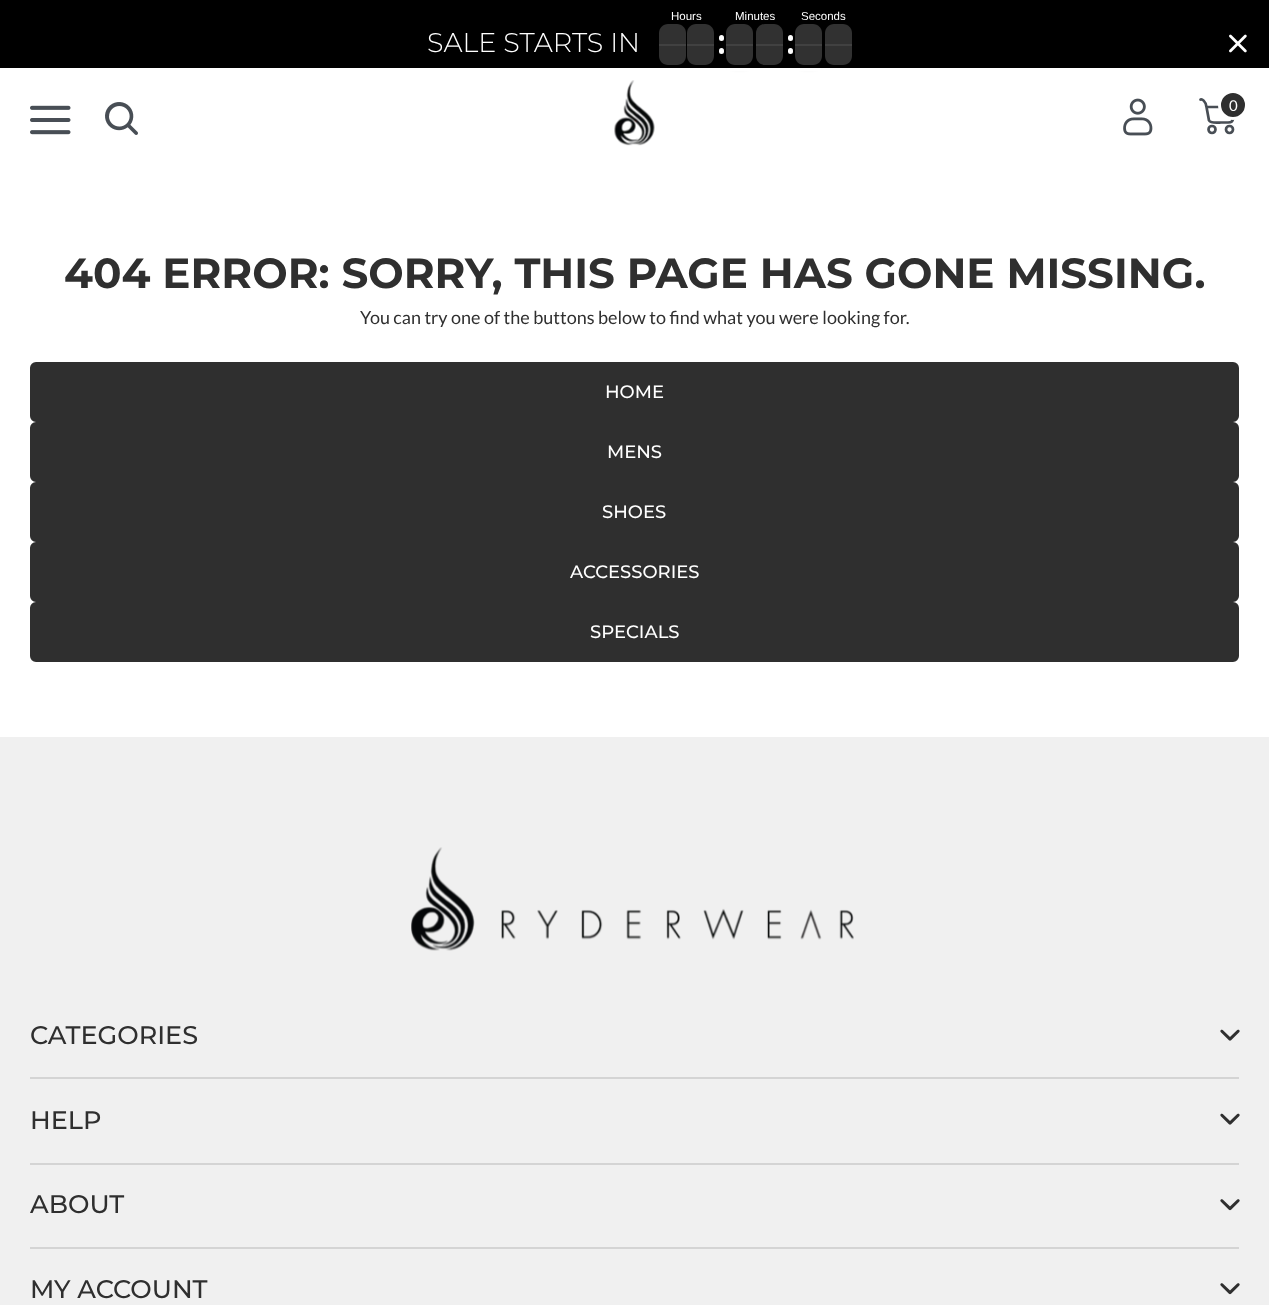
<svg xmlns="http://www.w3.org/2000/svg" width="1269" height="1305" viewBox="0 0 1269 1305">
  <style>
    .t1 { font: 11.5px Liberation Sans; fill: #fff; }
    .t2 { font: 300 27px Montserrat; fill: #fff; }
    .t3 { font: 15px Lato; fill: #fff; }
    .t4 { font: bold 42px Montserrat; fill: #2f2f2f; }
    .t5 { font: 18px Lato; fill: #2f2f2f; }
    .t6 { font: 500 18px Montserrat; fill: #fff; }
    .t7 { font: 500 25.5px Montserrat; fill: #2f2f2f; }
  </style>
  <rect width="100%" height="100%" fill="#fff"/>
  <rect x="0" y="0" width="1269" height="68" fill="#000"/>
  <text x="671" y="20" class="t1">Hours</text>
  <path d="M668 24H677C682 24 686 28 686 33V44H659V33C659 28 663 24 668 24Z" fill="#313131"/>
  <path d="M659 44H686V56C686 61 682 65 677 65H668C663 65 659 61 659 56Z" fill="#313131"/>
  <rect x="659" y="44" width="27" height="2" fill="#cccccc1a"/>
  <path d="M696 24H705C710 24 714 28 714 33V44H687V33C687 28 691 24 696 24Z" fill="#313131"/>
  <path d="M687 44H714V56C714 61 710 65 705 65H696C691 65 687 61 687 56Z" fill="#313131"/>
  <rect x="687" y="44" width="27" height="2" fill="#cccccc1a"/>
  <rect x="719" y="35" width="5" height="6" rx="2.5" fill="#fff"/>
  <rect x="719" y="48" width="5" height="6" rx="2.5" fill="#fff"/>
  <rect x="726" y="27" width="27" height="41" rx="9" fill="#0000003d" filter="blur(2px)"/>
  <text x="735" y="20" class="t1">Minutes</text>
  <path d="M735 24H744C749 24 753 28 753 33V44H726V33C726 28 730 24 735 24Z" fill="#313131"/>
  <path d="M726 44H753V56C753 61 749 65 744 65H735C730 65 726 61 726 56Z" fill="#313131"/>
  <rect x="726" y="44" width="27" height="2" fill="#cccccc1a"/>
  <path d="M765 24H774C779 24 783 28 783 33V44H756V33C756 28 760 24 765 24Z" fill="#313131"/>
  <path d="M756 44H783V56C783 61 779 65 774 65H765C760 65 756 61 756 56Z" fill="#313131"/>
  <rect x="756" y="44" width="27" height="2" fill="#cccccc1a"/>
  <rect x="788" y="35" width="5" height="6" rx="2.5" fill="#fff"/>
  <rect x="788" y="48" width="5" height="6" rx="2.5" fill="#fff"/>
  <rect x="795" y="27" width="27" height="41" rx="9" fill="#0000003d" filter="blur(2px)"/>
  <text x="801" y="20" class="t1">Seconds</text>
  <path d="M804 24H813C818 24 822 28 822 33V44H795V33C795 28 799 24 804 24Z" fill="#313131"/>
  <path d="M795 44H822V56C822 61 818 65 813 65H804C799 65 795 61 795 56Z" fill="#313131"/>
  <rect x="795" y="44" width="27" height="2" fill="#cccccc1a"/>
  <path d="M834 24H843C848 24 852 28 852 33V44H825V33C825 28 829 24 834 24Z" fill="#313131"/>
  <path d="M825 44H852V56C852 61 848 65 843 65H834C829 65 825 61 825 56Z" fill="#313131"/>
  <rect x="825" y="44" width="27" height="2" fill="#cccccc1a"/>
  <text x="427" y="52" class="t2">SALE STARTS IN</text>
  <image x="1229" y="34" width="18" height="19" href="images/1.png"/>
  <rect x="727" y="68" width="94" height="3" fill="#fff"/>
  <image x="30" y="105" width="41" height="30" href="images/2.png"/>
  <image x="105" y="102" width="33" height="33" href="images/3.png"/>
  <image x="614" y="80" width="41" height="66" href="images/4.png"/>
  <image x="1123" y="98" width="30" height="38" href="images/5.png"/>
  <path d="M1200.5 99.5C1202 99 1205.5 100.5 1206.5 107M1206.5 107L1209 120.5C1210.5 123.5 1218.5 122.5 1221 122.5H1228C1232 122.5 1232.5 121.5 1233.5 117.5L1236.5 107Z" fill="none" stroke="#484e55" stroke-width="2.7" stroke-linecap="round"/>
  <circle cx="1233" cy="105" r="13.5" fill="#2f2f2f" stroke="#fff" stroke-width="3"/>
  <text x="1229" y="111" class="t3">0</text>
  <circle cx="1212" cy="129.5" r="3.5" fill="none" stroke="#484e55" stroke-width="2.7"/>
  <circle cx="1229.5" cy="129.5" r="3.5" fill="none" stroke="#484e55" stroke-width="2.7"/>
  <text x="64" y="288" class="t4">404 ERROR: SORRY, THIS PAGE HAS GONE MISSING.</text>
  <text x="360" y="324" class="t5">You can try one of the buttons below to find what you were looking for.</text>
  <rect x="31" y="363" width="1207" height="58" rx="5" fill="#2f2f2f" stroke="#2f2f2f" stroke-width="2"/>
  <text x="605" y="398" class="t6">HOME</text>
  <rect x="31" y="423" width="1207" height="58" rx="5" fill="#2f2f2f" stroke="#2f2f2f" stroke-width="2"/>
  <text x="607" y="458" class="t6">MENS</text>
  <rect x="31" y="483" width="1207" height="58" rx="5" fill="#2f2f2f" stroke="#2f2f2f" stroke-width="2"/>
  <text x="602" y="518" class="t6">SHOES</text>
  <rect x="31" y="543" width="1207" height="58" rx="5" fill="#2f2f2f" stroke="#2f2f2f" stroke-width="2"/>
  <text x="570" y="578" class="t6">ACCESSORIES</text>
  <rect x="31" y="603" width="1207" height="58" rx="5" fill="#2f2f2f" stroke="#2f2f2f" stroke-width="2"/>
  <text x="590" y="638" class="t6">SPECIALS</text>
  <rect x="0" y="737" width="1269" height="568" fill="#f0f0f0"/>
  <image x="411" y="847" width="443" height="104" href="images/6.png"/>
  <rect x="30" y="1077" width="1209" height="2" fill="#d4d4d4"/>
  <text x="30" y="1044" class="t7">CATEGORIES</text>
  <image x="1220" y="1029" width="20" height="12" href="images/7.png"/>
  <rect x="30" y="1163" width="1209" height="2" fill="#d4d4d4"/>
  <text x="30" y="1129" class="t7">HELP</text>
  <image x="1220" y="1113" width="20" height="12" href="images/7.png"/>
  <rect x="30" y="1247" width="1209" height="2" fill="#d4d4d4"/>
  <text x="30" y="1213" class="t7">ABOUT</text>
  <image x="1220" y="1199" width="20" height="12" href="images/8.png"/>
  <text x="30" y="1298" class="t7">MY ACCOUNT</text>
  <image x="1220" y="1283" width="20" height="12" href="images/8.png"/>
</svg>
